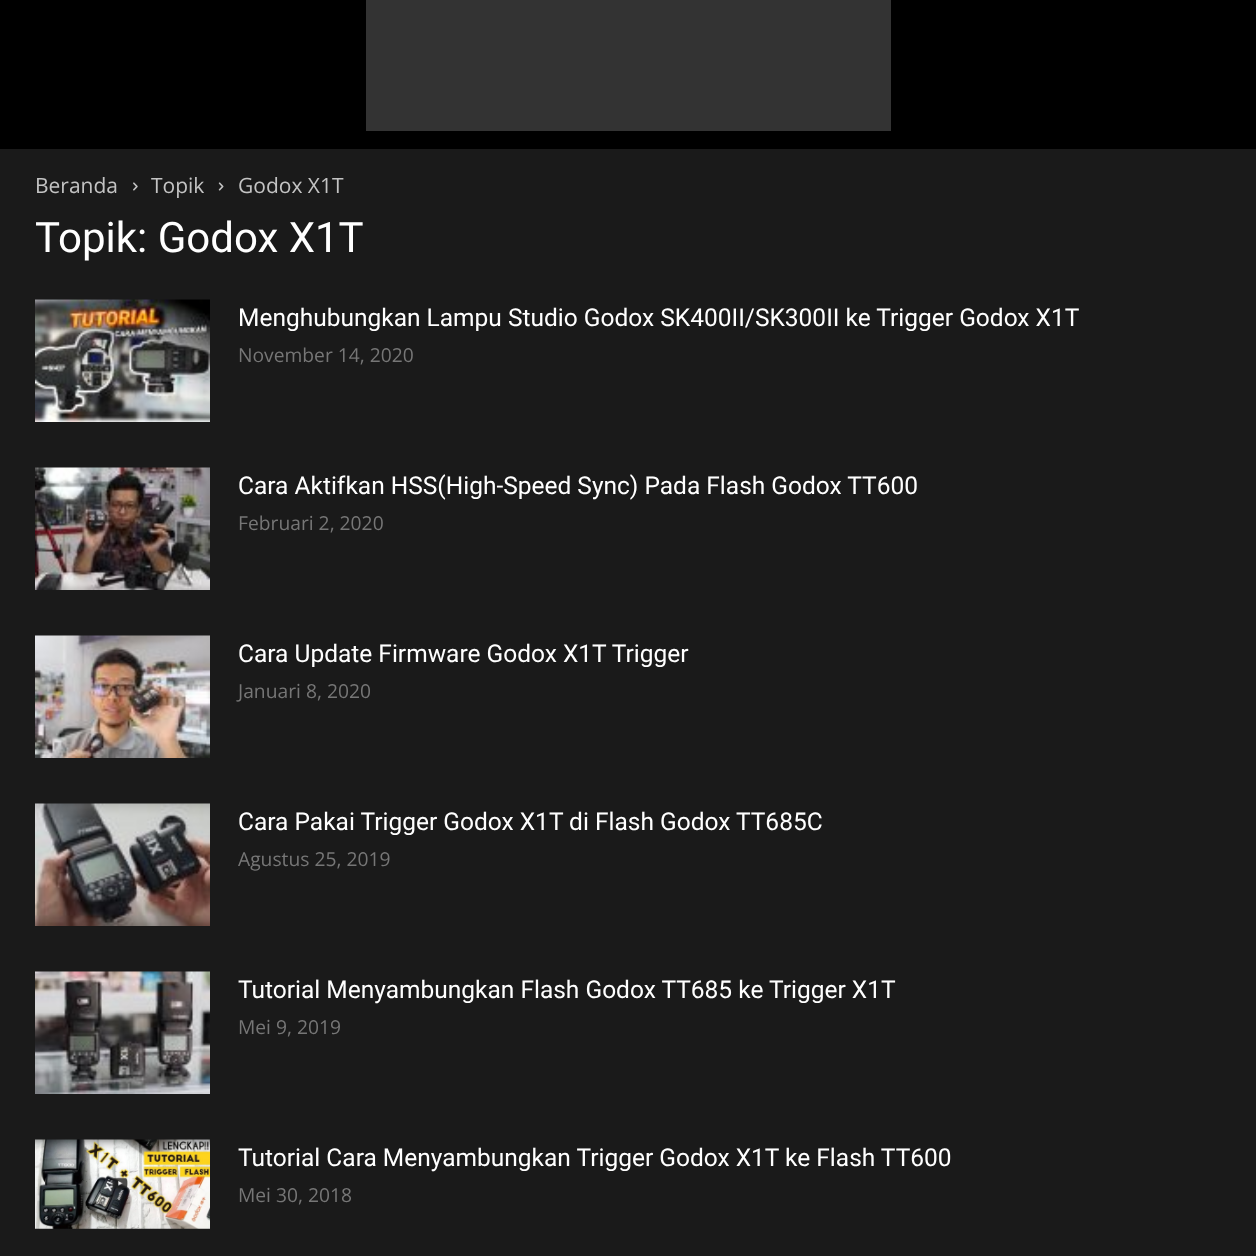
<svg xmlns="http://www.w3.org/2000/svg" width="1256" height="1256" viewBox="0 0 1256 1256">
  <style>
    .t1 { font: 21px Open Sans; fill: #c3c3c3; }
    .t2 { font: 42px Roboto; fill: #fff; }
    .t3 { font: 24.5px Roboto; fill: #fff; }
    .t4 { font: 19.25px Open Sans; fill: #767676; }
  </style>
  <rect width="100%" height="100%" fill="#1a1a1a"/>
  <rect x="0" y="0" width="1256" height="149" fill="#000"/>
  <rect x="366" y="0" width="525" height="131" fill="#333"/>
  <text x="35" y="193" class="t1">Beranda</text>
  <image x="133" y="182" width="5" height="9" href="images/1.png"/>
  <text x="151" y="193" class="t1">Topik</text>
  <image x="218" y="182" width="6" height="9" href="images/2.png"/>
  <text x="238" y="193" class="t1">Godox X1T</text>
  <text x="35" y="252" class="t2">Topik: Godox X1T</text>
  <image x="35" y="299" width="175" height="123" href="images/3.png"/>
  <text x="238" y="326" class="t3">Menghubungkan Lampu Studio Godox SK400II/SK300II ke Trigger Godox X1T</text>
  <text x="238" y="362" class="t4">November 14, 2020</text>
  <image x="35" y="467" width="175" height="123" href="images/4.png"/>
  <text x="238" y="494" class="t3">Cara Aktifkan HSS(High-Speed Sync) Pada Flash Godox TT600</text>
  <text x="238" y="530" class="t4">Februari 2, 2020</text>
  <image x="35" y="635" width="175" height="123" href="images/5.png"/>
  <text x="238" y="662" class="t3">Cara Update Firmware Godox X1T Trigger</text>
  <text x="238" y="698" class="t4">Januari 8, 2020</text>
  <image x="35" y="803" width="175" height="123" href="images/6.png"/>
  <text x="238" y="830" class="t3">Cara Pakai Trigger Godox X1T di Flash Godox TT685C</text>
  <text x="238" y="866" class="t4">Agustus 25, 2019</text>
  <image x="35" y="971" width="175" height="123" href="images/7.png"/>
  <text x="238" y="998" class="t3">Tutorial Menyambungkan Flash Godox TT685 ke Trigger X1T</text>
  <text x="238" y="1034" class="t4">Mei 9, 2019</text>
  <image x="35" y="1139" width="175" height="90" href="images/8.png"/>
  <text x="238" y="1166" class="t3">Tutorial Cara Menyambungkan Trigger Godox X1T ke Flash TT600</text>
  <text x="238" y="1202" class="t4">Mei 30, 2018</text>
</svg>
